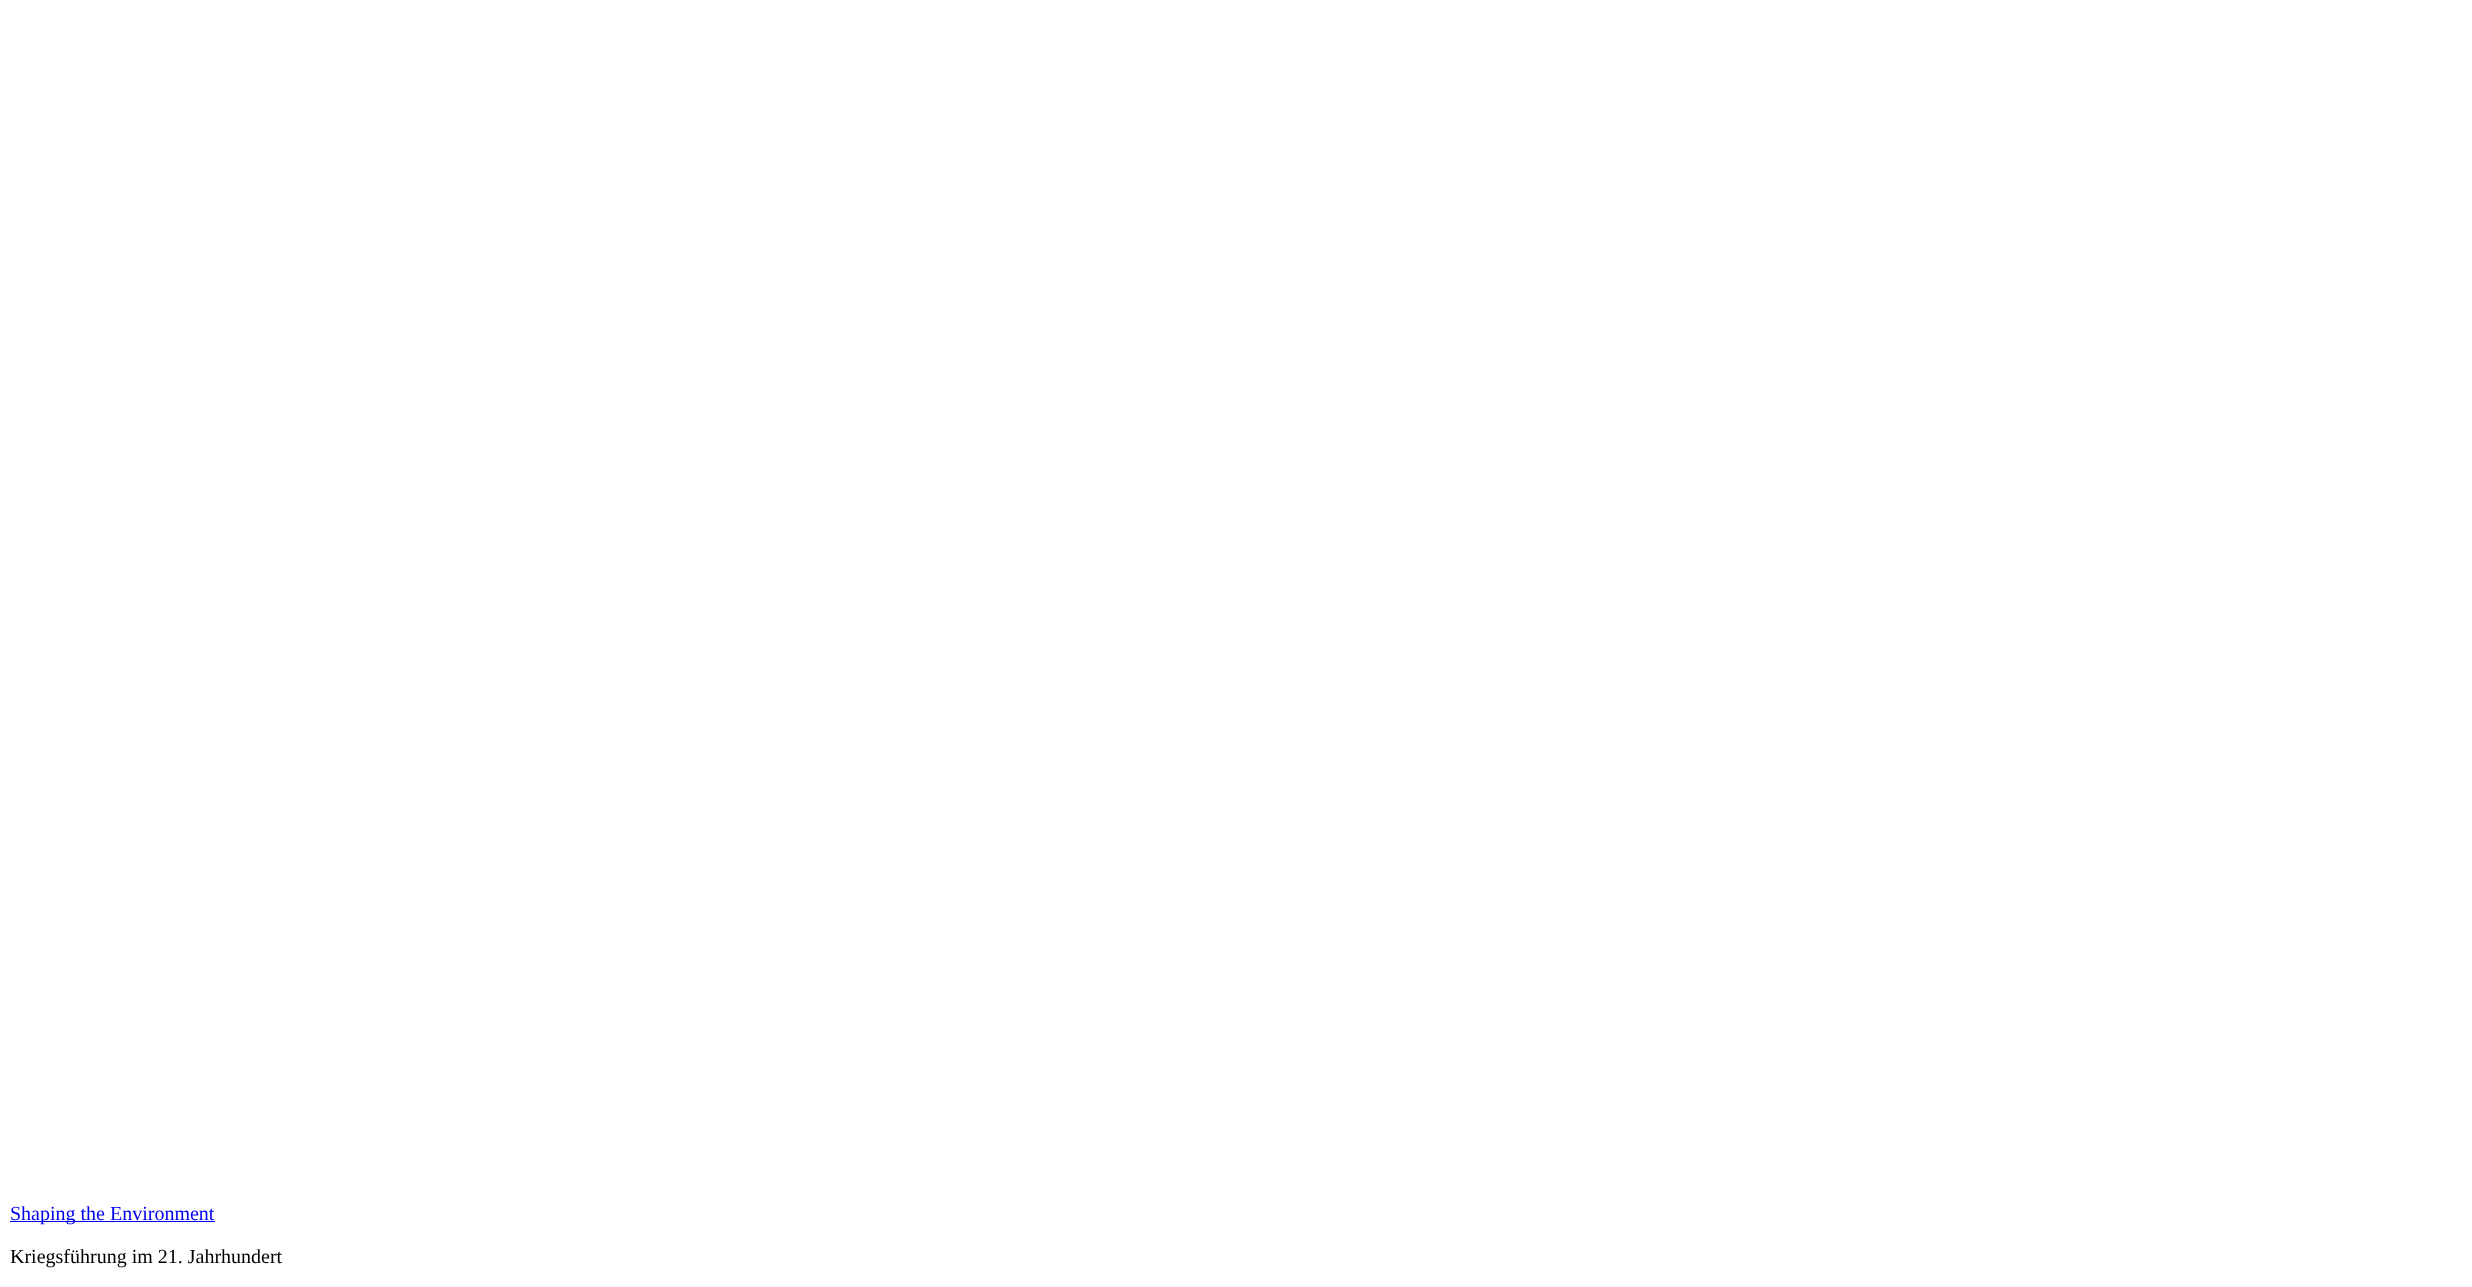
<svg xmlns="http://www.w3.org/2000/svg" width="2472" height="1287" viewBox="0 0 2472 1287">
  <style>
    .t1 { font: 20px Liberation Serif; fill: #00e; }
    .t2 { font: 20px Liberation Serif; fill: #000; }
  </style>
  <rect width="100%" height="100%" fill="#fff"/>
  <rect x="10" y="1221" width="205" height="1" fill="#00e"/>
  <text x="10" y="1220" class="t1">Shaping the Environment</text>
  <text x="10" y="1263" class="t2">Kriegsführung im 21. Jahrhundert</text>
</svg>
